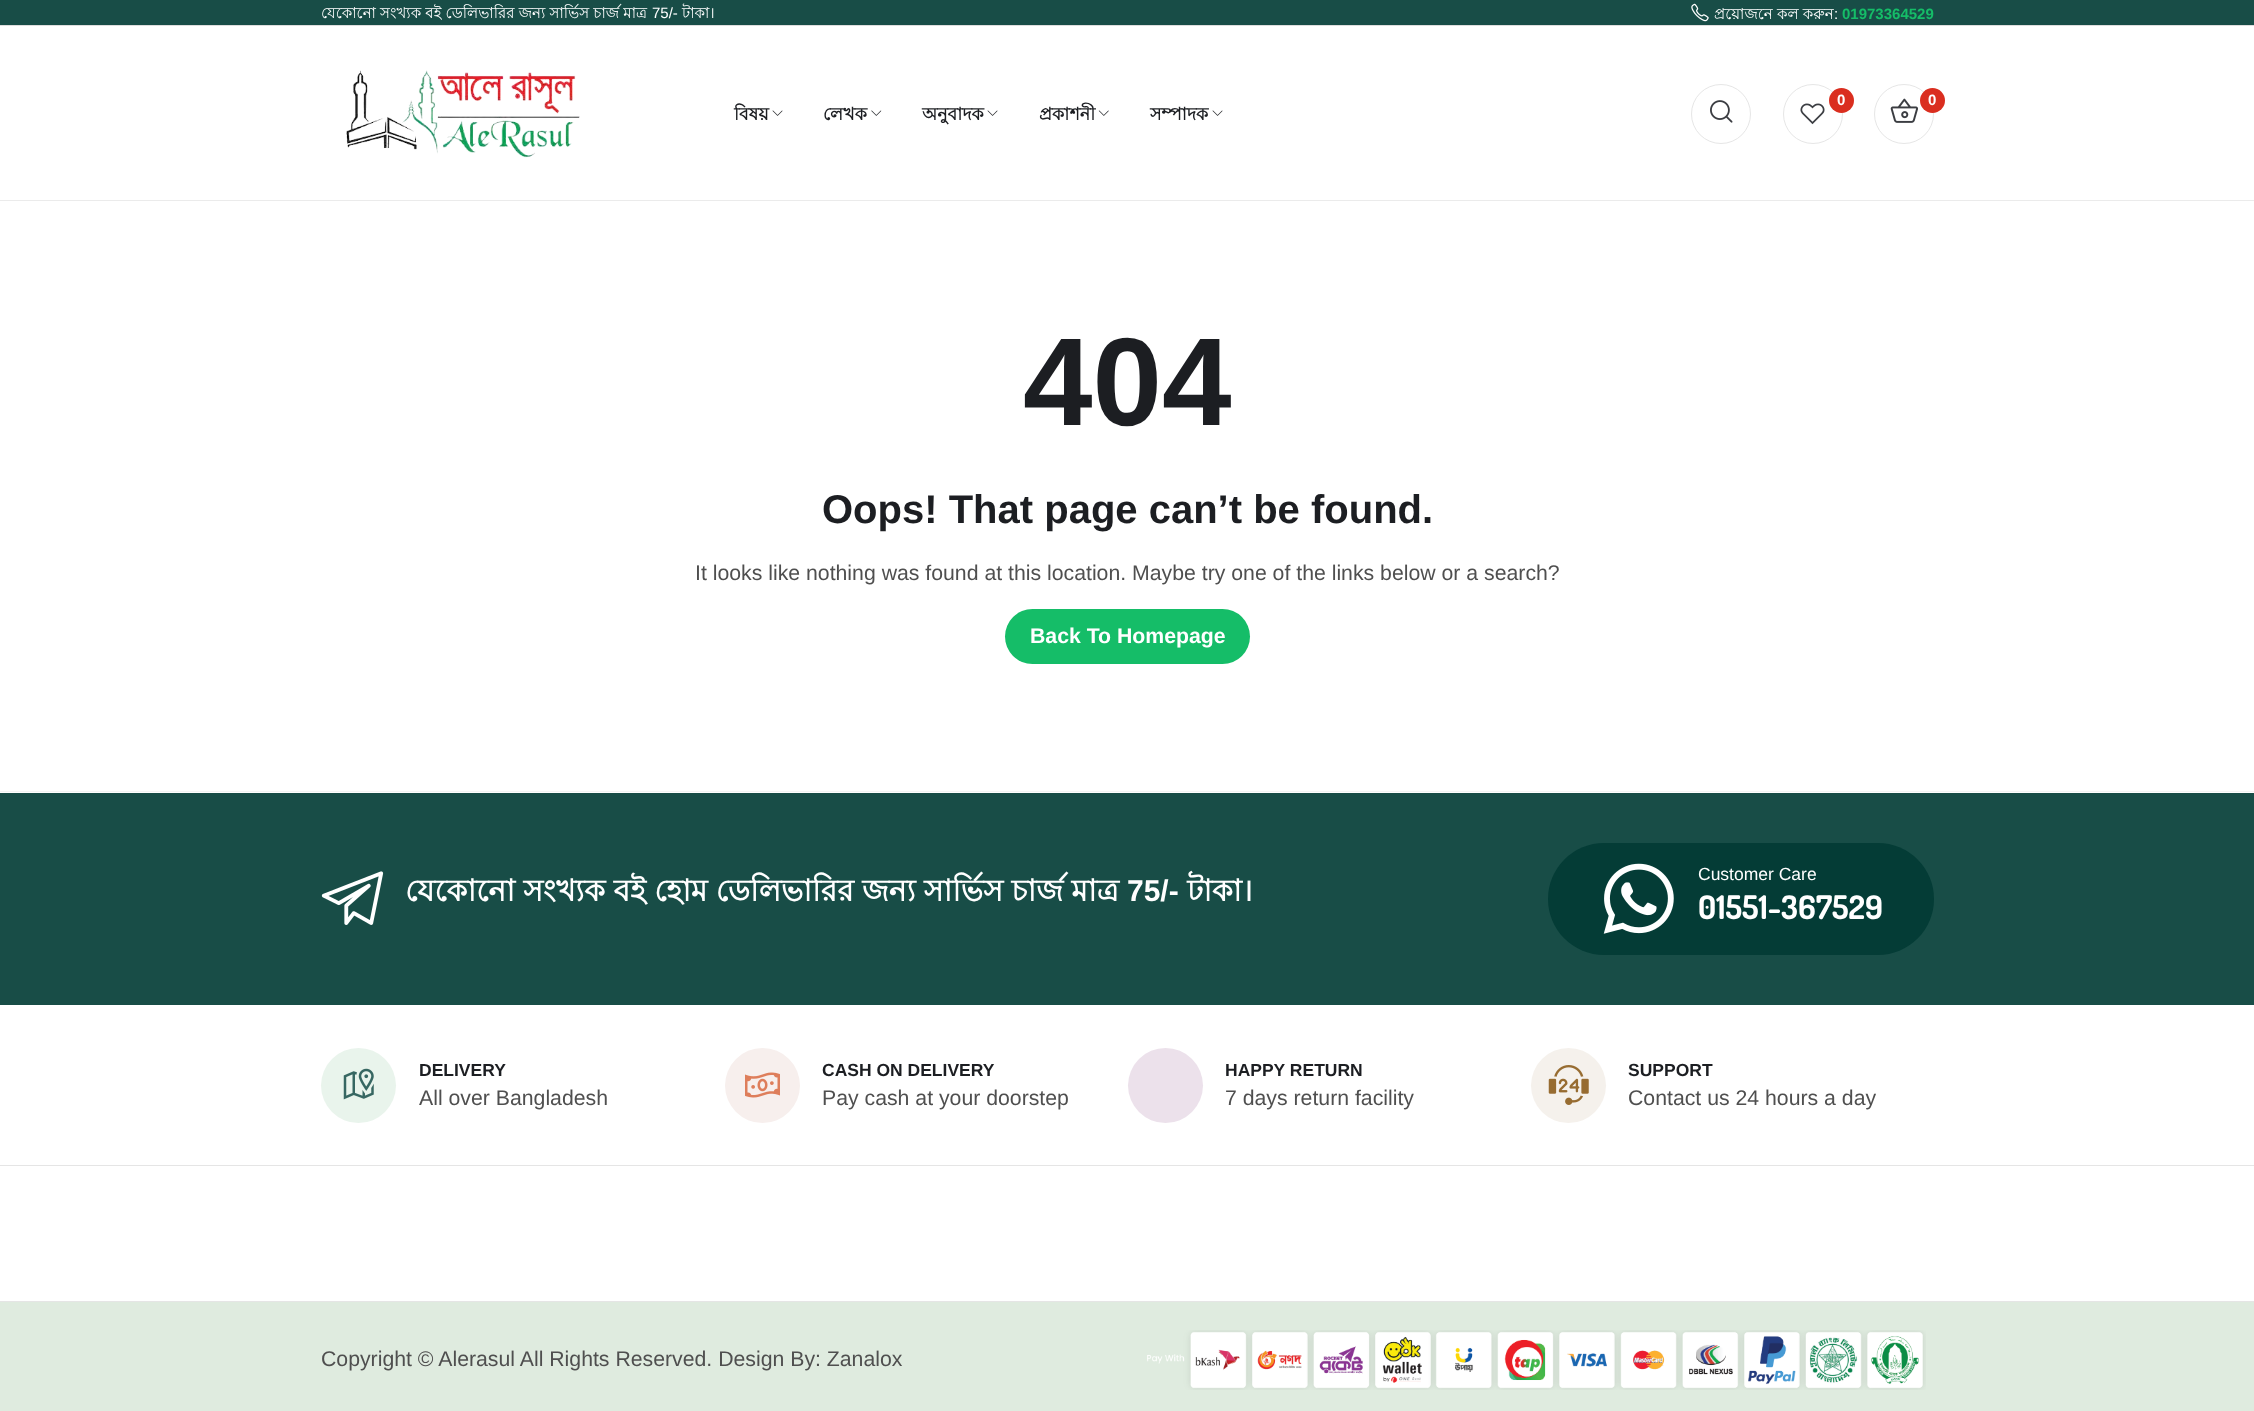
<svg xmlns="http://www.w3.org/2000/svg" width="2254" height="1411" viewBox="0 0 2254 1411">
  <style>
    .t1 { font: 15px Lohit Bengali; fill: #fff; }
    .t2 { font: 15px Liberation Sans; fill: #fff; }
    .t3 { font: bold 15px Liberation Sans; fill: #15bd68; }
    .t4 { font: bold 15px Liberation Sans; fill: #fff; }
    .t5 { font: bold 17.5px Lohit Bengali; fill: #1c1e22; }
    .t6 { font: bold 125px Liberation Sans; fill: #1c1e22; }
    .t7 { font: bold 40px Liberation Sans; fill: #1c1e22; }
    .t8 { font: 21.25px Liberation Sans; fill: #4f4f4f; }
    .t9 { font: bold 21.25px Liberation Sans; fill: #fff; }
    .t10 { font: bold 30px Lohit Bengali; fill: #fff; }
    .t11 { font: bold 30px Liberation Sans; fill: #fff; }
    .t12 { font: 17.5px Liberation Sans; fill: #fff; }
    .t13 { font: bold 32.5px Dosis; fill: #fff; }
    .t14 { font: bold 17.5px Liberation Sans; fill: #1c1e22; }
  </style>
  <rect width="100%" height="100%" fill="#fff"/>
  <rect x="0" y="0" width="2254" height="25" fill="#184d47"/>
  <rect x="0" y="25" width="2254" height="1" fill="#ddd"/>
  <text x="321" y="18" class="t1">যেকোনো সংখ্যক বই ডেলিভারির জন্য সার্ভিস চার্জ মাত্র</text>
  <text x="652" y="18" class="t2">75/-</text>
  <text x="682" y="18" class="t1">টাকা।</text>
  <image x="1691" y="3" width="18" height="19" href="images/1.png"/>
  <text x="1714" y="19" class="t1">প্রয়োজনে কল করুন</text>
  <text x="1834" y="19" class="t2">:</text>
  <text x="1842" y="19" class="t3">01973364529</text>
  <rect x="0" y="200" width="2254" height="1" fill="#ebebeb"/>
  <image x="346" y="70" width="234" height="88" href="images/2.png"/>
  <circle cx="1721" cy="114" r="29.5" fill="none" stroke="#e6e6e6"/>
  <image x="1710" y="100" width="23" height="23" href="images/3.png"/>
  <circle cx="1813" cy="114" r="29.5" fill="none" stroke="#e6e6e6"/>
  <circle cx="1841.5" cy="100.5" r="12.5" fill="#da2e1f"/>
  <text x="1837" y="105" class="t4">0</text>
  <image x="1800" y="103" width="25" height="22" href="images/4.png"/>
  <circle cx="1904" cy="114" r="29.5" fill="none" stroke="#e6e6e6"/>
  <image x="1890" y="98" width="28" height="25" href="images/5.png"/>
  <circle cx="1932.5" cy="100.5" r="12.5" fill="#da2e1f"/>
  <text x="1928" y="105" class="t4">0</text>
  <text x="734" y="120" class="t5">বিষয়</text>
  <image x="772" y="110" width="11" height="6" href="images/6.png"/>
  <text x="823" y="120" class="t5">লেখক</text>
  <image x="871" y="110" width="11" height="6" href="images/7.png"/>
  <text x="922" y="120" class="t5">অনুবাদক</text>
  <image x="987" y="110" width="11" height="6" href="images/6.png"/>
  <text x="1039" y="120" class="t5">প্রকাশনী</text>
  <image x="1098" y="110" width="11" height="6" href="images/8.png"/>
  <text x="1150" y="120" class="t5">সম্পাদক</text>
  <image x="1212" y="110" width="11" height="6" href="images/6.png"/>
  <text x="1023" y="425" class="t6">404</text>
  <text x="822" y="523" class="t7">Oops! That page can’t be found.</text>
  <text x="695" y="580" class="t8">It looks like nothing was found at this location. Maybe try one of the links below or a search?</text>
  <rect x="1005" y="609" width="245" height="55" rx="27.5" fill="#15bd68"/>
  <text x="1030" y="643" class="t9">Back To Homepage</text>
  <rect x="0" y="791" width="2254" height="1" fill="#f4f4f4"/>
  <rect x="0" y="793" width="2254" height="212" fill="#184d47"/>
  <image x="321" y="871" width="63" height="54" href="images/9.png"/>
  <text x="405" y="901" class="t10">যেকোনো সংখ্যক বই হোম ডেলিভারির জন্য সার্ভিস চার্জ মাত্র</text>
  <text x="1127" y="901" class="t11">75/-</text>
  <text x="1187" y="901" class="t10">টাকা।</text>
  <rect x="1548" y="843" width="386" height="112" rx="56" fill="#043c36"/>
  <image x="1603" y="863" width="71" height="71" href="images/10.png"/>
  <text x="1698" y="880" class="t12">Customer Care</text>
  <text x="1698" y="919" class="t13">01551-367529</text>
  <rect x="0" y="1165" width="2254" height="1" fill="#e5e5e5"/>
  <circle cx="358.5" cy="1085.5" r="37.5" fill="#e9f4ec"/>
  <image x="343" y="1068" width="31" height="32" href="images/11.png"/>
  <text x="419" y="1076" class="t14">DELIVERY</text>
  <text x="419" y="1105" class="t8">All over Bangladesh</text>
  <circle cx="762.5" cy="1085.5" r="37.5" fill="#f7efed"/>
  <image x="745" y="1072" width="35" height="26" href="images/12.png"/>
  <text x="822" y="1076" class="t14">CASH ON DELIVERY</text>
  <text x="822" y="1105" class="t8">Pay cash at your doorstep</text>
  <circle cx="1165.5" cy="1085.5" r="37.5" fill="#ece1eb"/>
  <text x="1225" y="1076" class="t14">HAPPY RETURN</text>
  <text x="1225" y="1105" class="t8">7 days return facility</text>
  <circle cx="1568.5" cy="1085.5" r="37.5" fill="#f5f1ec"/>
  <image x="1548" y="1065" width="41" height="40" href="images/13.png"/>
  <text x="1628" y="1076" class="t14">SUPPORT</text>
  <text x="1628" y="1105" class="t8">Contact us 24 hours a day</text>
  <rect x="0" y="1302" width="2254" height="109" fill="#dfebdf"/>
  <rect x="0" y="1301" width="2254" height="1" fill="#e5e5e5"/>
  <text x="321" y="1366" class="t8">Copyright © Alerasul All Rights Reserved. Design By: Zanalox</text>
  <image x="1147" y="1330" width="779" height="60" href="images/14.png"/>
</svg>
